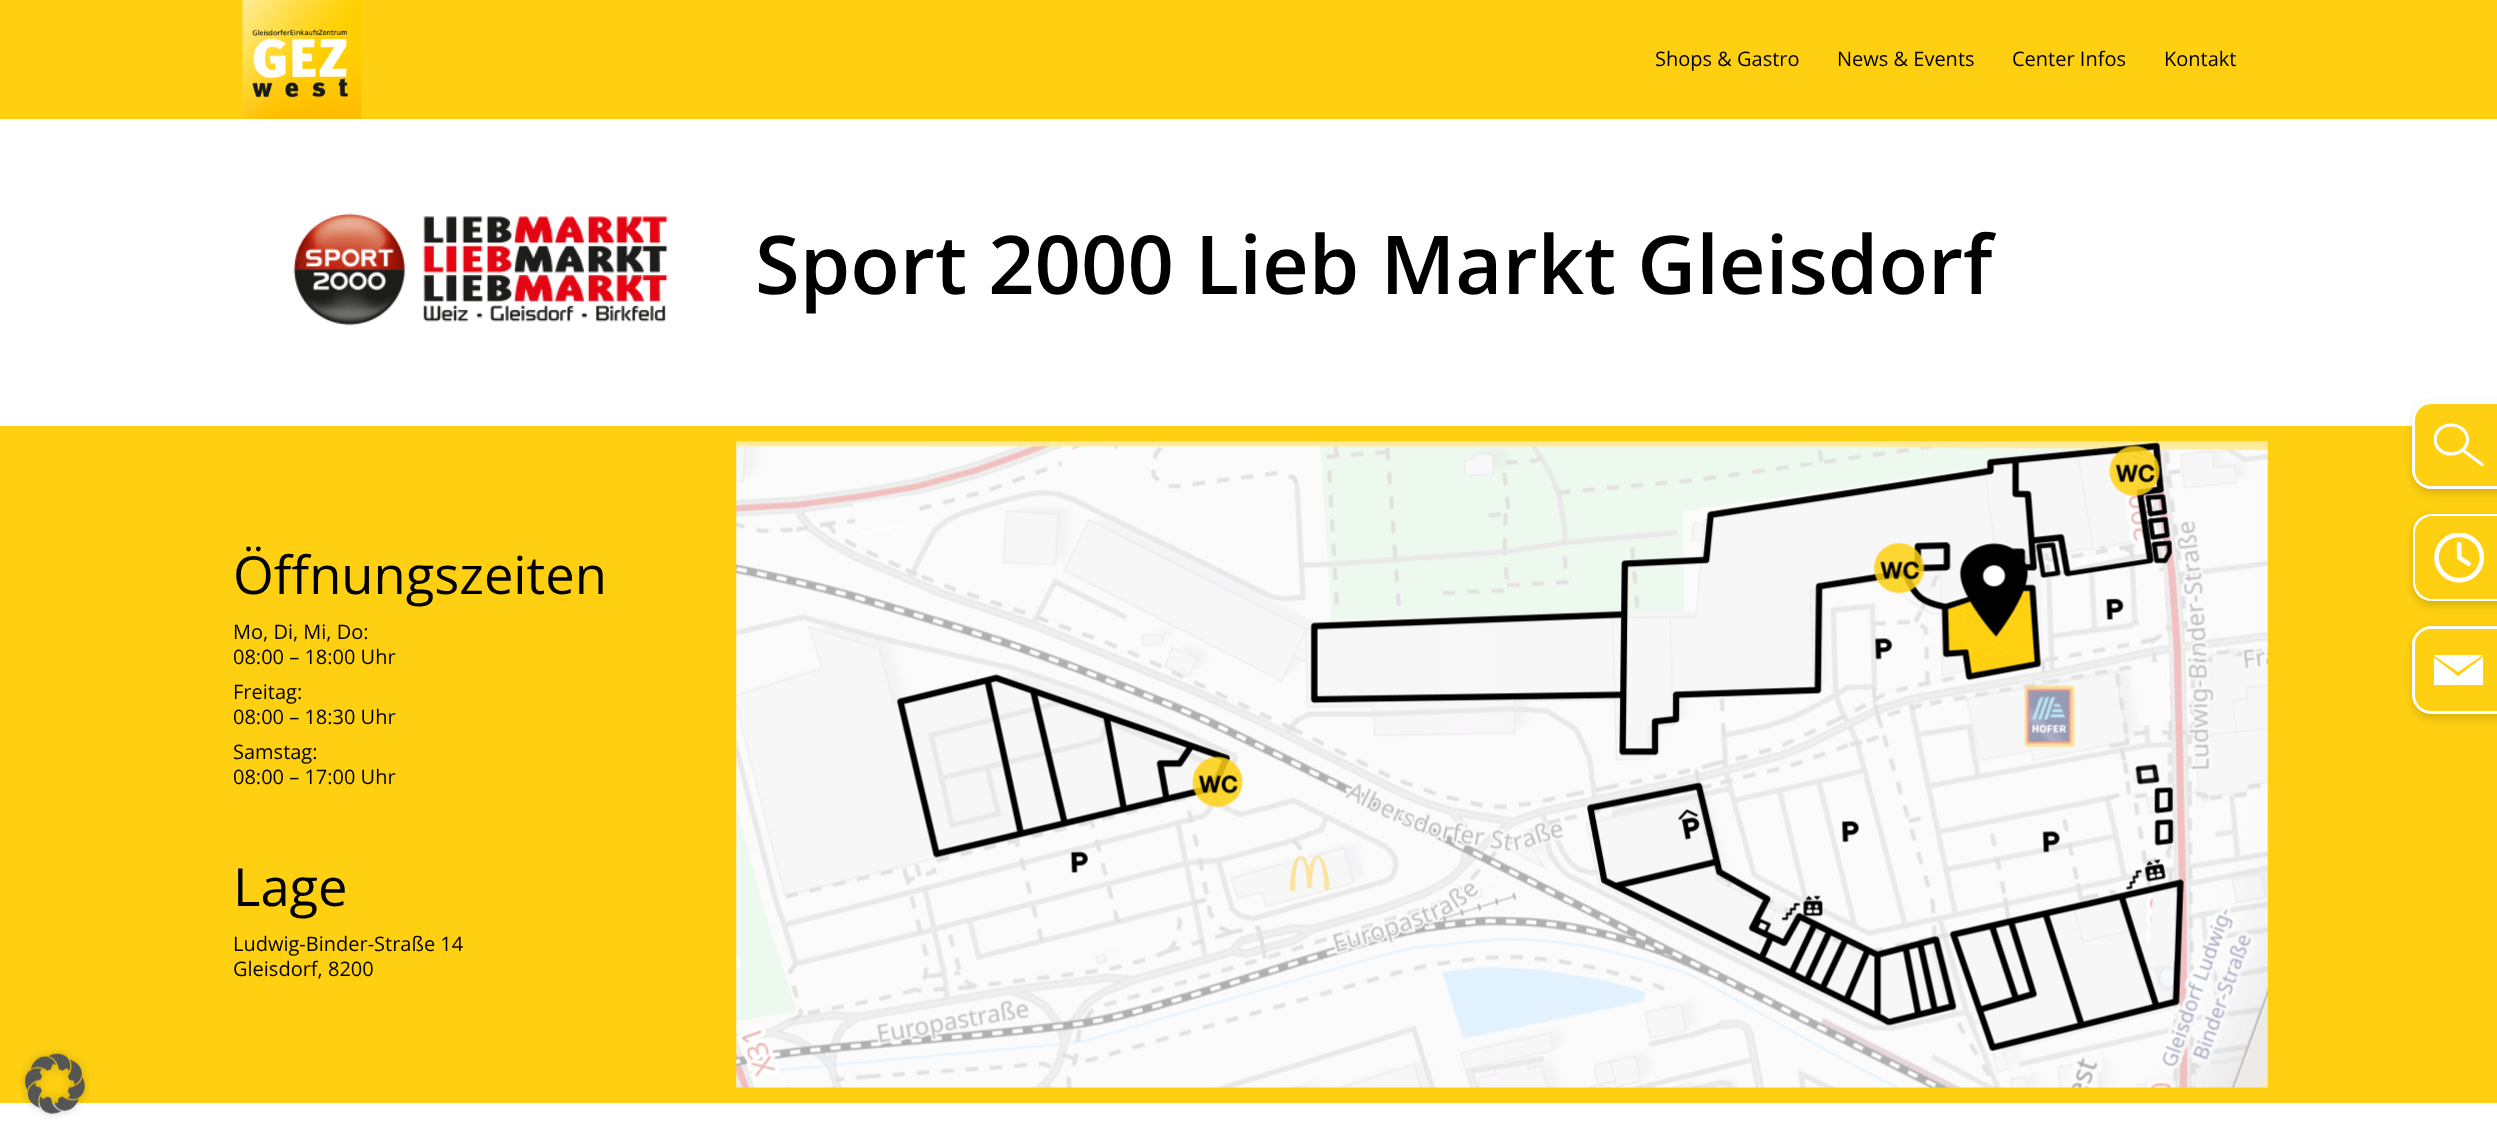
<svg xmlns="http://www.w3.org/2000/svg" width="2497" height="1138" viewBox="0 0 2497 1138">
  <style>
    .t1 { font: 20px Open Sans; fill: #000; }
    .t2 { font: 600 81.25px Open Sans; fill: #000; }
    .t3 { font: 52.5px Open Sans; fill: #000; }
  </style>
  <defs>
    <clipPath id="clip1"><rect x="2434" y="420" width="50" height="50"/></clipPath>
    <clipPath id="clip2"><path d="M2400 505H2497V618H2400ZM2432 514H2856V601H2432C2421.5 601 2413 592.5 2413 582V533C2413 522.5 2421.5 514 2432 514Z" clip-rule="evenodd"/></clipPath>
    <clipPath id="clip3"><path d="M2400 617H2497V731H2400ZM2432 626H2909V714H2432C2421.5 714 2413 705.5 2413 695V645C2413 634.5 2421.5 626 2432 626Z" clip-rule="evenodd"/></clipPath>
    <clipPath id="clip4"><rect x="2434" y="645" width="50" height="50"/></clipPath>
  </defs>
  <rect width="100%" height="100%" fill="#fff"/>
  <rect x="0" y="0" width="2497" height="119" fill="#fed011"/>
  <image x="242" y="0" width="120" height="119" href="images/1.png"/>
  <text x="1655" y="66" class="t1">Shops &amp; Gastro</text>
  <text x="1837" y="66" class="t1">News &amp; Events</text>
  <text x="2012" y="66" class="t1">Center Infos</text>
  <text x="2164" y="66" class="t1">Kontakt</text>
  <rect x="0" y="426" width="2497" height="677" fill="#fed011"/>
  <rect x="2413" y="405" width="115" height="88" rx="19" fill="#00000029" filter="blur(4px)"/>
  <path d="M2431 404H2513V486H2431C2422 486 2415 479 2415 470V420C2415 411 2422 404 2431 404Z" fill="#fed011"/>
  <path d="M2431 401H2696V489H2431C2421 489 2412 480 2412 470V420C2412 410 2421 401 2431 401ZM2431 404H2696V486H2431C2422 486 2415 479 2415 470V420C2415 411 2422 404 2431 404Z" fill="#fff" fill-rule="evenodd"/>
  <g clip-path="url(#clip1)">
    <path d="M2467.5 439.5C2467.5 447.5 2460 454 2451 454C2442 454 2435 447.5 2435 439.5C2435 431.5 2442 425 2451 425C2460 425 2467.5 431.5 2467.5 439.5Z" fill="none" stroke="#fff" stroke-width="3.2" stroke-linecap="round" stroke-linejoin="round"/>
  </g>
  <path d="M2482 464.5L2463.5 450.5" fill="none" stroke="#fff" stroke-width="3.2" stroke-linecap="round" stroke-linejoin="round"/>
  <g clip-path="url(#clip2)">
    <rect x="2413" y="518" width="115" height="87" rx="19" fill="#00000029" filter="blur(4px)"/>
  </g>
  <path d="M2432 514H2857V601H2432C2421 601 2413 593 2413 582V532C2413 522 2421 514 2432 514ZM2432 516H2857V599H2432C2423 599 2415 591 2415 582V532C2415 524 2423 516 2432 516Z" fill="#fff" fill-rule="evenodd"/>
  <image x="2434" y="533" width="50" height="50" href="images/2.png"/>
  <g clip-path="url(#clip3)">
    <rect x="2413" y="630" width="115" height="88" rx="19" fill="#00000029" filter="blur(4px)"/>
  </g>
  <path d="M2431 626H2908V714H2431C2421 714 2412 705 2412 695V645C2412 635 2421 626 2431 626ZM2431 629H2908V711H2431C2422 711 2415 704 2415 695V645C2415 636 2422 629 2431 629Z" fill="#fff" fill-rule="evenodd"/>
  <g clip-path="url(#clip4)">
    <path d="M2433 655L2458 672L2483 655ZM2433 657V685H2483V657L2458 676Z" fill="#fff"/>
  </g>
  <image x="293" y="213" width="375" height="113" href="images/3.png"/>
  <text x="755" y="294" class="t2">Sport 2000 Lieb Markt Gleisdorf</text>
  <text x="233" y="594" class="t3">Öffnungszeiten</text>
  <text x="233" y="639" class="t1">Mo, Di, Mi, Do:</text>
  <text x="233" y="664" class="t1">08:00 – 18:00 Uhr</text>
  <text x="233" y="699" class="t1">Freitag:</text>
  <text x="233" y="724" class="t1">08:00 – 18:30 Uhr</text>
  <text x="233" y="759" class="t1">Samstag:</text>
  <text x="233" y="784" class="t1">08:00 – 17:00 Uhr</text>
  <text x="233" y="906" class="t3">Lage</text>
  <text x="233" y="951" class="t1">Ludwig-Binder-Straße 14</text>
  <text x="233" y="976" class="t1">Gleisdorf, 8200</text>
  <image x="736" y="441" width="1533" height="647" href="images/4.png"/>
  <image x="20" y="1049" width="70" height="69" href="images/5.png"/>
</svg>
